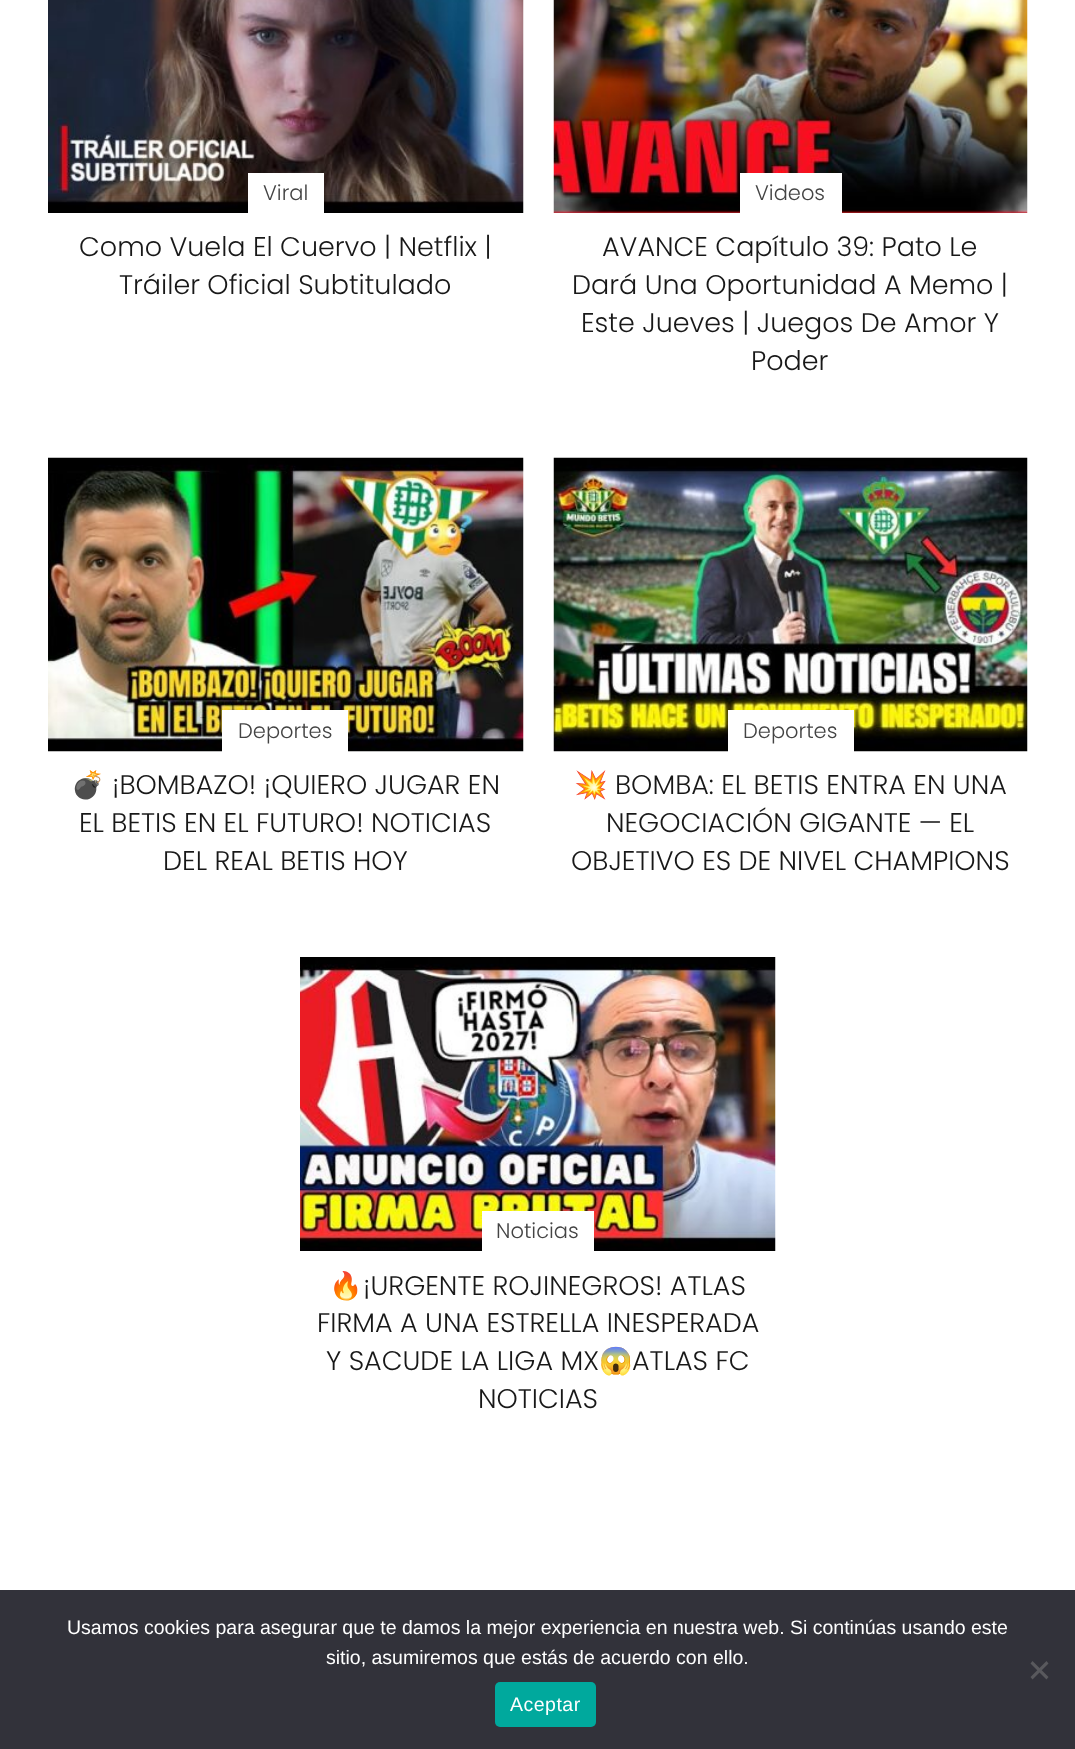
<svg xmlns="http://www.w3.org/2000/svg" width="1075" height="1749" viewBox="0 0 1075 1749">
  <style>
    .t1 { font: 300 21px Poppins; fill: #444; }
    .t2 { font: 300 27px Poppins; fill: #181818; }
    .t3 { font: 27px Noto Color Emoji; fill: #181818; }
    .t4 { font: 19.5px Liberation Sans; fill: #fff; }
    .t5 { font: 19.5px Liberation Sans; letter-spacing: 0.5px; fill: #fff; }
  </style>
  <rect width="100%" height="100%" fill="#fff"/>
  <image x="48" y="0" width="476" height="213" href="images/1.png"/>
  <rect x="248" y="173" width="76" height="40" fill="#fff"/>
  <text x="263" y="200" class="t1">Viral</text>
  <text x="79" y="256" class="t2">Como Vuela El Cuervo | Netflix |</text>
  <text x="119" y="294" class="t2">Tráiler Oficial Subtitulado</text>
  <image x="553" y="0" width="475" height="213" href="images/2.png"/>
  <rect x="740" y="173" width="102" height="40" fill="#fff"/>
  <text x="755" y="200" class="t1">Videos</text>
  <text x="602" y="256" class="t2">AVANCE Capítulo 39: Pato Le</text>
  <text x="572" y="294" class="t2">Dará Una Oportunidad A Memo |</text>
  <text x="581" y="332" class="t2">Este Jueves | Juegos De Amor Y</text>
  <text x="751" y="370" class="t2">Poder</text>
  <image x="48" y="457" width="476" height="295" href="images/3.png"/>
  <rect x="222" y="710" width="126" height="42" fill="#fff"/>
  <text x="238" y="738" class="t1">Deportes</text>
  <text x="71" y="794" class="t3">💣</text>
  <text x="112" y="794" class="t2">¡BOMBAZO! ¡QUIERO JUGAR EN</text>
  <text x="79" y="832" class="t2">EL BETIS EN EL FUTURO! NOTICIAS</text>
  <text x="163" y="870" class="t2">DEL REAL BETIS HOY</text>
  <image x="553" y="457" width="475" height="295" href="images/4.png"/>
  <rect x="728" y="710" width="126" height="42" fill="#fff"/>
  <text x="743" y="738" class="t1">Deportes</text>
  <text x="574" y="794" class="t3">💥</text>
  <text x="615" y="794" class="t2">BOMBA: EL BETIS ENTRA EN UNA</text>
  <text x="606" y="832" class="t2">NEGOCIACIÓN GIGANTE — EL</text>
  <text x="571" y="870" class="t2">OBJETIVO ES DE NIVEL CHAMPIONS</text>
  <image x="300" y="957" width="476" height="294" href="images/5.png"/>
  <rect x="482" y="1211" width="112" height="40" fill="#fff"/>
  <text x="496" y="1238" class="t1">Noticias</text>
  <text x="329" y="1295" class="t3">🔥</text>
  <text x="363" y="1295" class="t2">¡URGENTE ROJINEGROS! ATLAS</text>
  <text x="317" y="1332" class="t2">FIRMA A UNA ESTRELLA INESPERADA</text>
  <text x="326" y="1370" class="t2">Y SACUDE LA LIGA MX</text>
  <text x="599" y="1370" class="t3">😱</text>
  <text x="632" y="1370" class="t2">ATLAS FC</text>
  <text x="478" y="1408" class="t2">NOTICIAS</text>
  <rect x="0" y="1590" width="1075" height="159" fill="#32323a"/>
  <text x="67" y="1634" class="t4">Usamos cookies para asegurar que te damos la mejor experiencia en nuestra web. Si continúas usando este</text>
  <text x="326" y="1664" class="t4">sitio, asumiremos que estás de acuerdo con ello.</text>
  <path d="M1046.5 1661L1048.5 1663.5L1032.5 1679.5L1030.5 1677Z" fill="#59595d"/>
  <path d="M1030.5 1663.5L1032.5 1661L1048.5 1677L1046.5 1679.5Z" fill="#59595d"/>
  <rect x="495" y="1682" width="101" height="45" rx="5" fill="#00a99d"/>
  <text x="510" y="1711" class="t5">Aceptar</text>
</svg>
